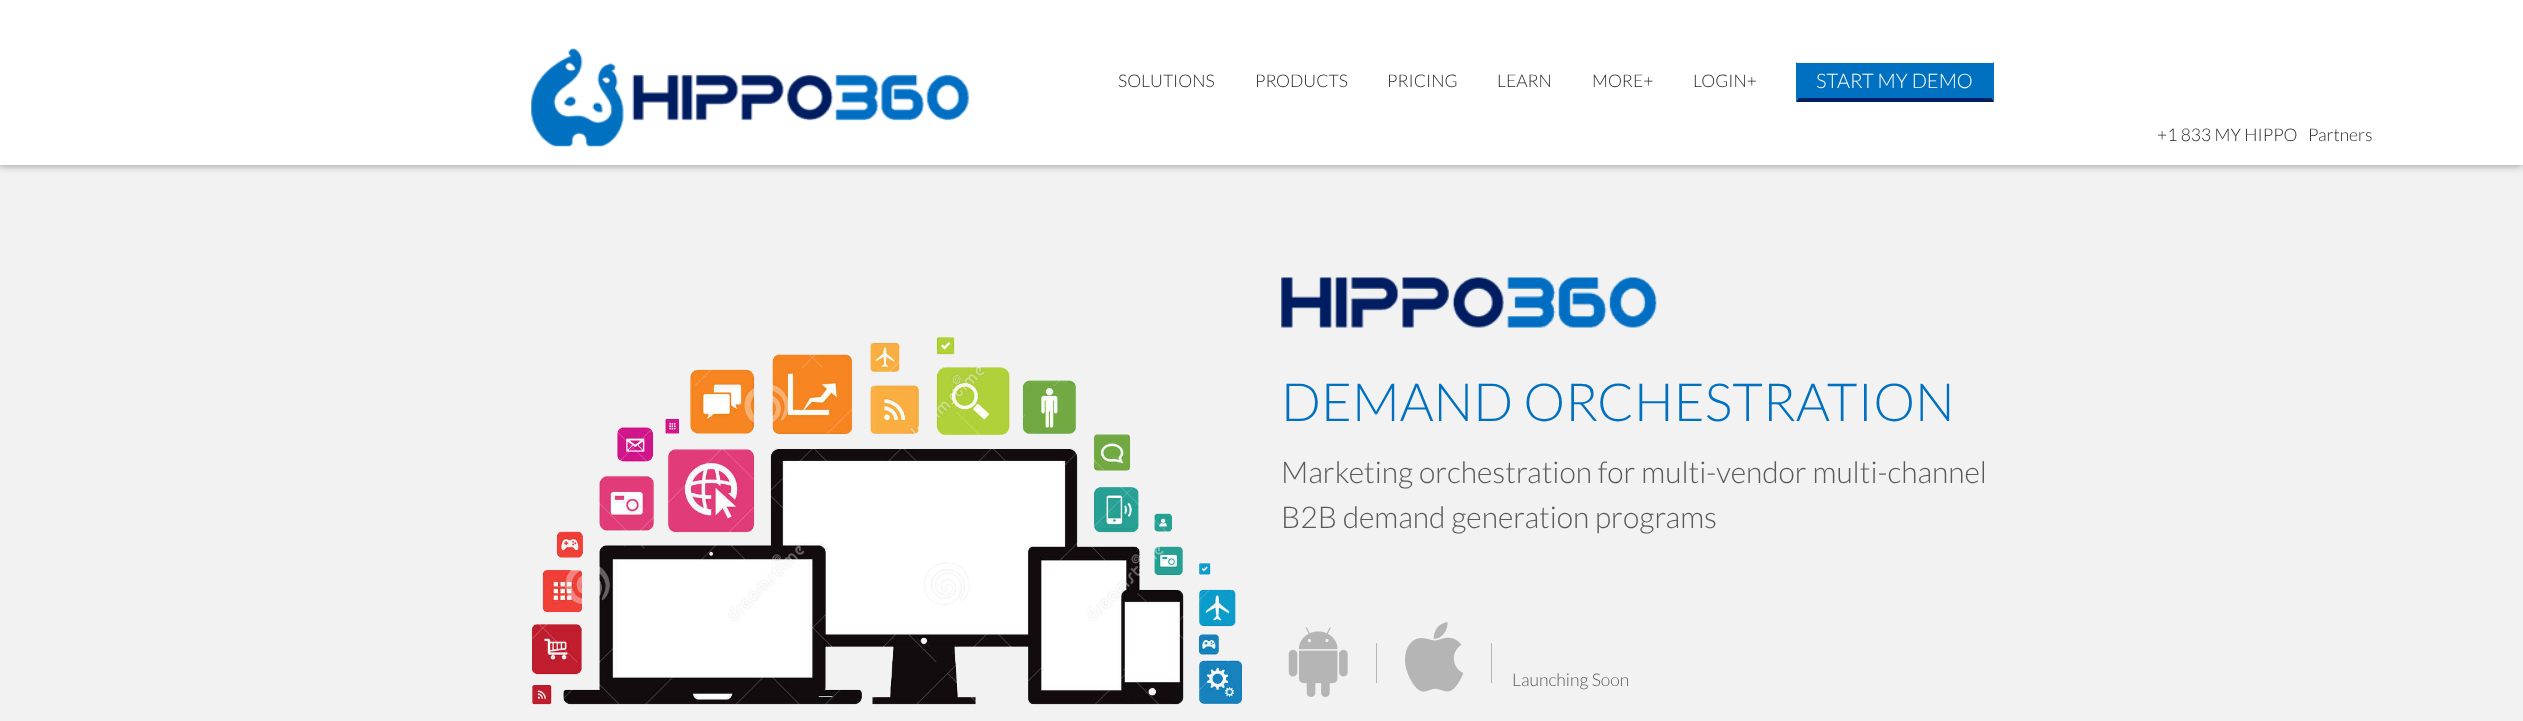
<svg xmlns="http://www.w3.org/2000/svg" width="2523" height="721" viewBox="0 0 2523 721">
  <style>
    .t1 { font: 300 17.5px Lato; fill: #27292b; }
    .t2 { font: 300 20px Lato; fill: #fff; }
    .t3 { font: 300 52.5px Lato; fill: #0070c0; }
    .t4 { font: 300 30px Lato; fill: #595959; }
    .t5 { font: 300 17.5px Lato; fill: #595959; }
  </style>
  <rect width="100%" height="100%" fill="#f2f2f2"/>
  <rect x="-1" y="0" width="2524" height="165" fill="#888" filter="blur(4px)"/>
  <rect x="0" y="0" width="2523" height="165" fill="#fff"/>
  <image x="531" y="48" width="438" height="99" href="images/1.png"/>
  <text x="1118" y="87" class="t1">SOLUTIONS</text>
  <text x="1255" y="87" class="t1">PRODUCTS</text>
  <text x="1387" y="87" class="t1">PRICING</text>
  <text x="1497" y="87" class="t1">LEARN</text>
  <text x="1592" y="87" class="t1">MORE+</text>
  <text x="1693" y="87" class="t1">LOGIN+</text>
  <rect x="1798" y="64" width="194" height="34" fill="#0070c0"/>
  <rect x="1796" y="63" width="198" height="1" fill="#0070c0"/>
  <path d="M1994 62V102L1992 98V64Z" fill="#0070c0"/>
  <path d="M1994 102H1796L1798 98H1992Z" fill="#001e62"/>
  <path d="M1796 102V62L1798 64V98Z" fill="#0070c0"/>
  <text x="1816" y="88" class="t2">START MY DEMO</text>
  <text x="2157" y="141" class="t1">+1 833 MY HIPPO</text>
  <text x="2308" y="141" class="t1">Partners</text>
  <image x="532" y="337" width="711" height="368" href="images/2.png"/>
  <image x="1281" y="277" width="376" height="51" href="images/3.png"/>
  <text x="1281" y="421" class="t3">DEMAND ORCHESTRATION</text>
  <text x="1281" y="483" class="t4">Marketing orchestration for multi-vendor multi-channel</text>
  <text x="1281" y="528" class="t4">B2B demand generation programs</text>
  <image x="1288" y="627" width="60" height="70" href="images/4.png"/>
  <rect x="1376" y="643" width="1" height="40" fill="#b5b5b5"/>
  <image x="1405" y="622" width="59" height="70" href="images/5.png"/>
  <rect x="1491" y="643" width="1" height="40" fill="#b5b5b5"/>
  <text x="1512" y="686" class="t5">Launching Soon</text>
</svg>
